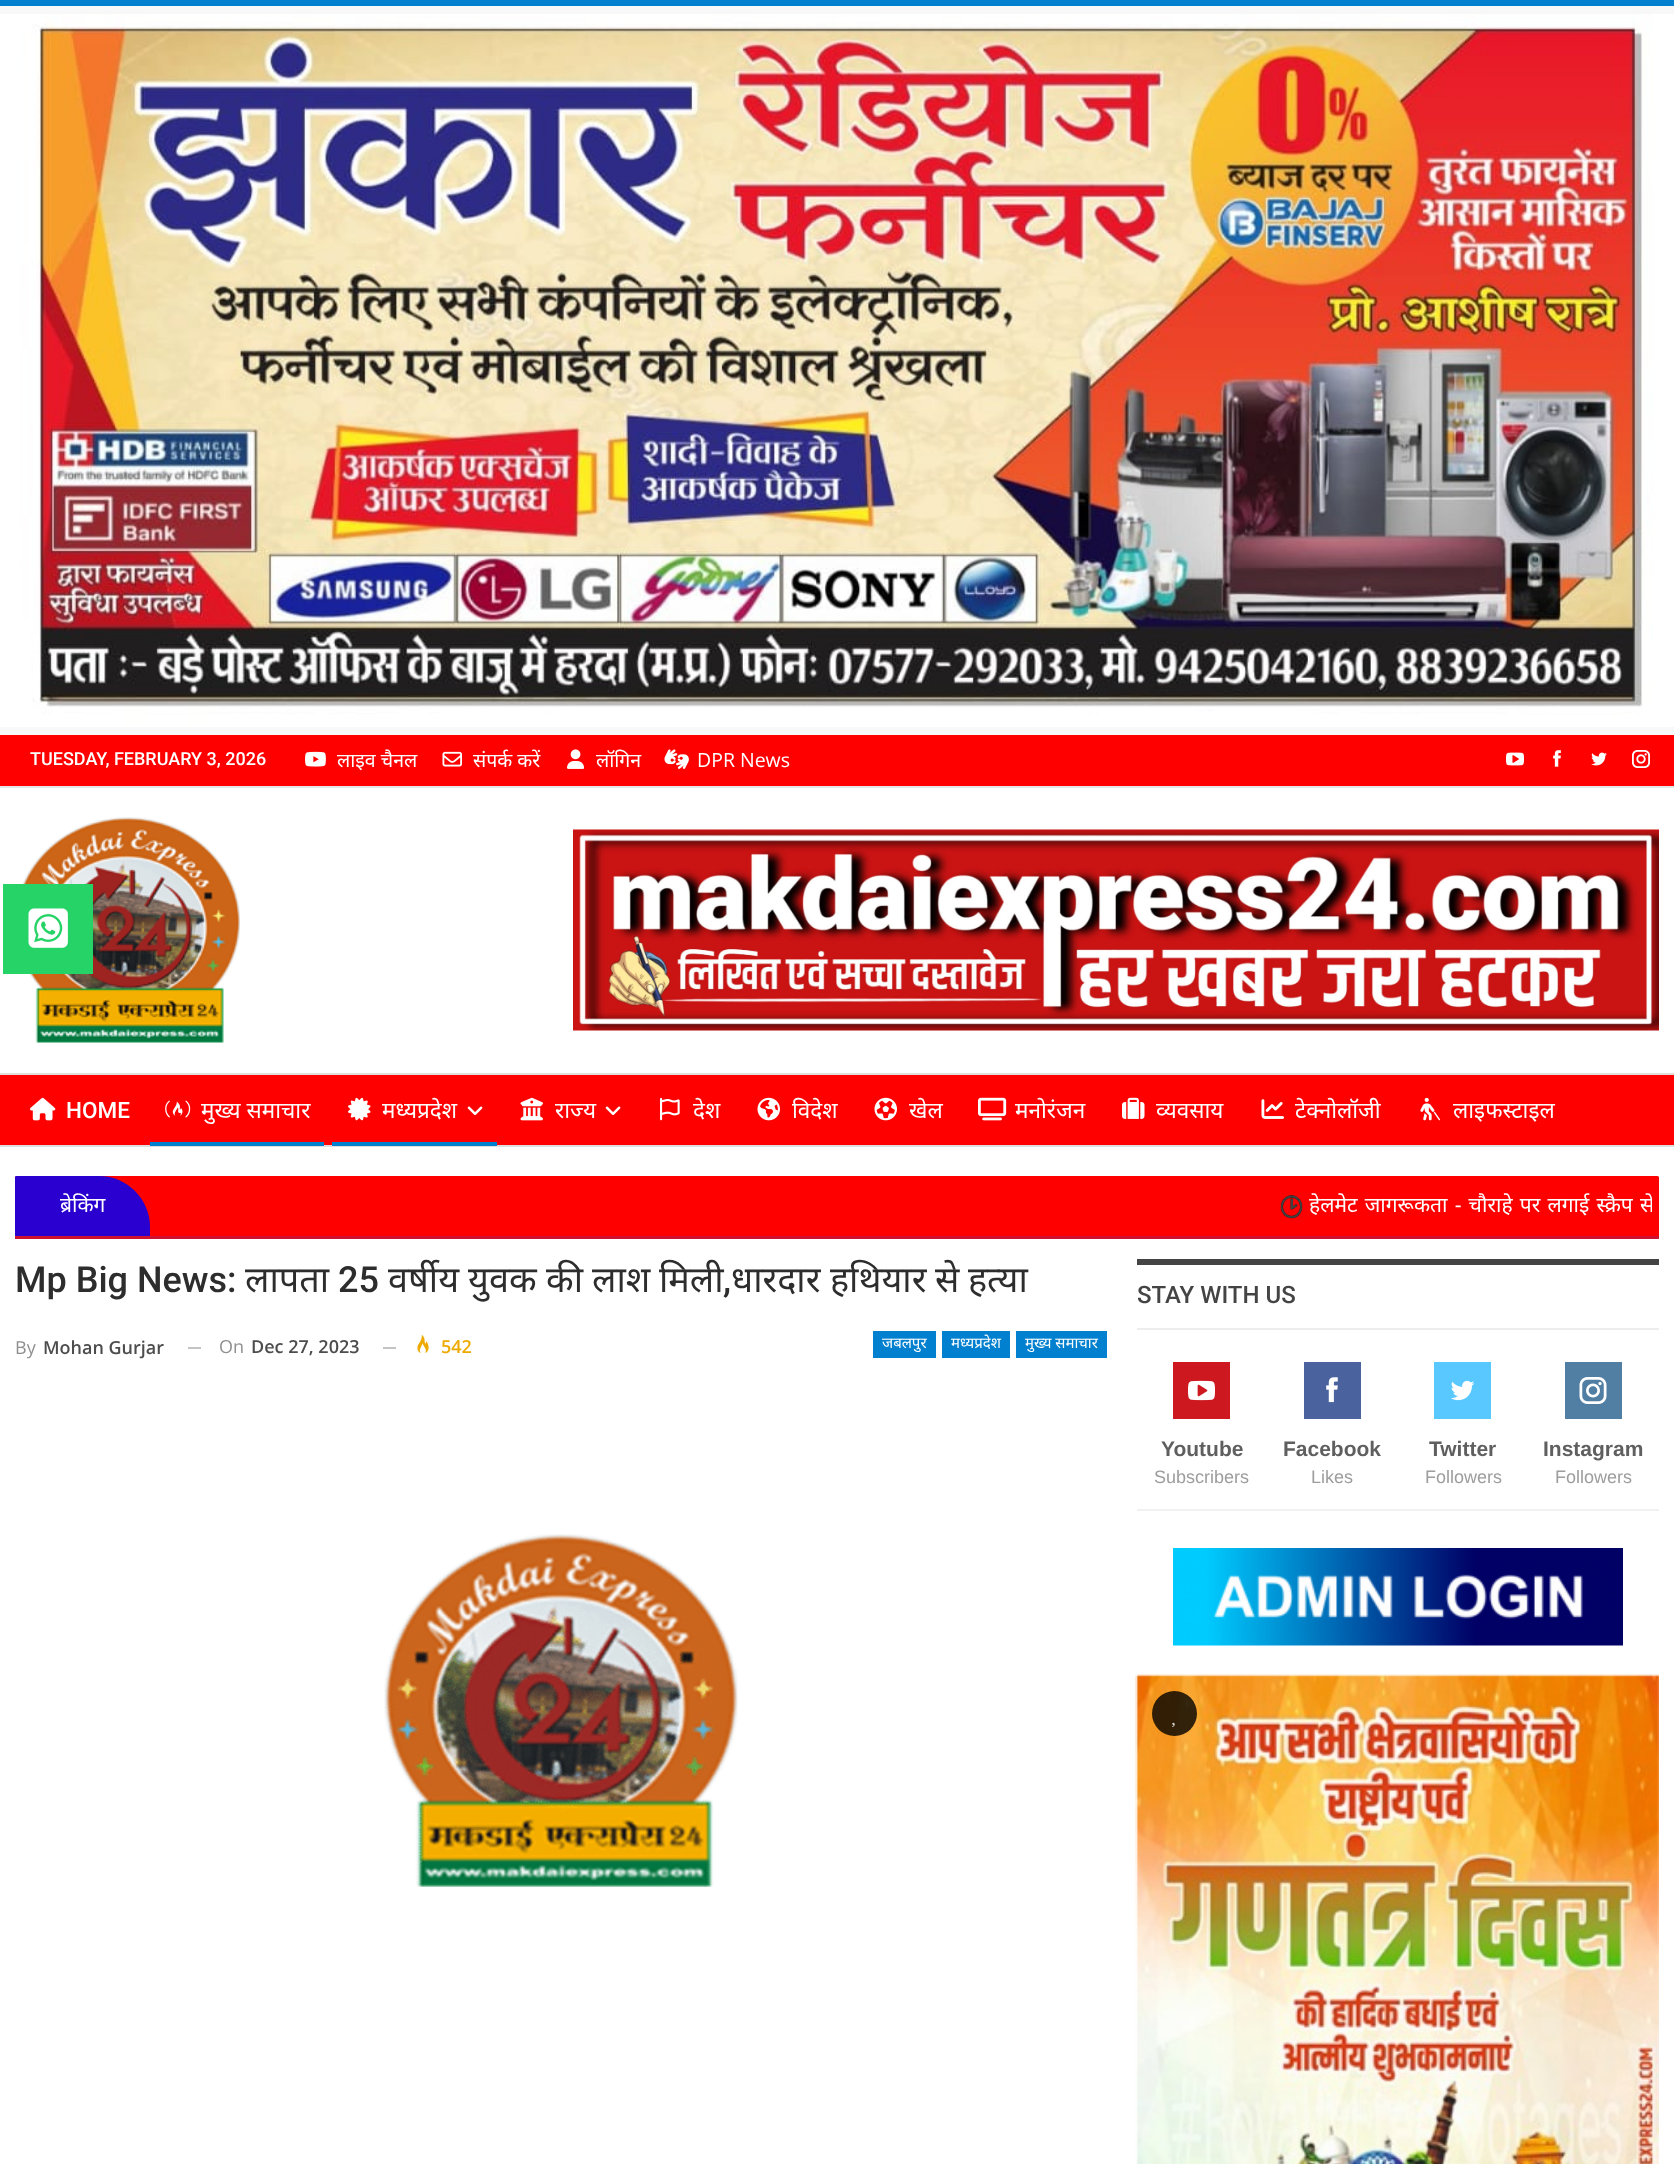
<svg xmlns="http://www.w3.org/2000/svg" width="1674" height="2164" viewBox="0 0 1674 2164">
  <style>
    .t1 { font: 500 18px Roboto; fill: #fff; }
    .t2 { font: 19.5px Noto Sans; fill: #fff; }
    .t3 { font: 19.5px Open Sans; fill: #fff; }
    .t4 { font: 500 22.5px Roboto; fill: #fff; }
    .t5 { font: 22.5px Noto Sans; fill: #fff; }
    .t6 { font: 21px Noto Sans; fill: #fff; }
    .t7 { font: 500 36px Roboto; fill: #2d2d2d; }
    .t8 { font: 36px Noto Sans; fill: #2d2d2d; }
    .t9 { font: 18px Open Sans; fill: #8f8f8f; }
    .t10 { font: 600 18px Open Sans; fill: #4d4d4d; }
    .t11 { font: 600 18px Open Sans; fill: #edaa02; }
    .t12 { font: 15px Noto Sans; fill: #fff; }
    .t13 { font: 500 24px Roboto; fill: #444; }
    .t14 { font: bold 21px Liberation Sans; fill: #5f5f5f; }
    .t15 { font: 18px Liberation Sans; fill: #9d9d9d; }
  </style>
  <defs>
    <clipPath id="clip1"><rect x="158" y="1176" width="1494" height="62"/></clipPath>
  </defs>
  <rect width="100%" height="100%" fill="#fff"/>
  <rect x="0" y="0" width="1674" height="6" fill="#0080ce"/>
  <rect x="0" y="6" width="1674" height="729" fill="#f8f8f8"/>
  <image x="0" y="14" width="1674" height="713" href="images/1.png"/>
  <rect x="0" y="735" width="1674" height="51" fill="#f00"/>
  <rect x="0" y="786" width="1674" height="2" fill="#e6e6e6"/>
  <text x="30" y="765" class="t1">TUESDAY, FEBRUARY 3, 2026</text>
  <image x="305" y="751" width="21" height="16" href="images/2.png"/>
  <text x="337" y="767" class="t2">लाइव चैनल</text>
  <image x="442" y="751" width="20" height="16" href="images/3.png"/>
  <text x="473" y="767" class="t2">संपर्क करें</text>
  <image x="567" y="749" width="18" height="20" href="images/4.png"/>
  <text x="596" y="767" class="t2">लॉगिन</text>
  <image x="664" y="749" width="25" height="20" href="images/5.png"/>
  <text x="697" y="767" class="t3">DPR News</text>
  <image x="1506" y="752" width="18" height="14" href="images/6.png"/>
  <image x="1553" y="750" width="8" height="17" href="images/7.png"/>
  <image x="1591" y="752" width="16" height="14" href="images/8.png"/>
  <image x="1632" y="750" width="18" height="18" href="images/9.png"/>
  <image x="22" y="817" width="218" height="226" href="images/10.png"/>
  <image x="573" y="829" width="1086" height="202" href="images/11.png"/>
  <rect x="0" y="1075" width="1674" height="70" fill="#f00"/>
  <rect x="0" y="1073" width="1674" height="2" fill="#dedede"/>
  <rect x="0" y="1145" width="1674" height="2" fill="#dedede"/>
  <image x="30" y="1097" width="26" height="24" href="images/12.png"/>
  <text x="66" y="1118" class="t4">HOME</text>
  <image x="165" y="1100" width="26" height="18" href="images/13.png"/>
  <text x="201" y="1118" class="t5">मुख्य समाचार</text>
  <rect x="150" y="1142" width="174" height="4" fill="#0080ce"/>
  <image x="348" y="1097" width="23" height="24" href="images/14.png"/>
  <text x="382" y="1118" class="t5">मध्यप्रदेश</text>
  <image x="467" y="1106" width="16" height="9" href="images/15.png"/>
  <rect x="332" y="1142" width="165" height="4" fill="#0080ce"/>
  <image x="520" y="1097" width="23" height="24" href="images/16.png"/>
  <text x="555" y="1118" class="t5">राज्य</text>
  <image x="605" y="1106" width="16" height="9" href="images/15.png"/>
  <image x="660" y="1097" width="20" height="24" href="images/17.png"/>
  <text x="693" y="1118" class="t5">देश</text>
  <image x="757" y="1097" width="23" height="24" href="images/18.png"/>
  <text x="792" y="1118" class="t5">विदेश</text>
  <image x="874" y="1097" width="23" height="24" href="images/19.png"/>
  <text x="909" y="1118" class="t5">खेल</text>
  <image x="978" y="1097" width="29" height="24" href="images/20.png"/>
  <text x="1015" y="1118" class="t5">मनोरंजन</text>
  <image x="1122" y="1097" width="23" height="22" href="images/21.png"/>
  <text x="1156" y="1118" class="t5">व्यवसाय</text>
  <image x="1261" y="1099" width="23" height="20" href="images/22.png"/>
  <text x="1295" y="1118" class="t5">टेक्नोलॉजी</text>
  <image x="1420" y="1097" width="20" height="24" href="images/23.png"/>
  <text x="1453" y="1118" class="t5">लाइफस्टाइल</text>
  <rect x="15" y="1176" width="1644" height="63" rx="1.5" fill="#f00"/>
  <path d="M16.5 1176H99C127 1176 150 1199 150 1227V1239H16.5C15.5 1239 15 1238.5 15 1237.5V1177.5C15 1176.5 15.5 1176 16.5 1176Z" fill="#2900cf"/>
  <text x="60" y="1212" class="t6">ब्रेकिंग</text>
  <path d="M15 1236H1659V1237.5C1659 1238.5 1658.5 1239 1657.5 1239H16.5C15.5 1239 15 1238.5 15 1237.5Z" fill="#ce1031"/>
  <image x="1280" y="1195" width="23" height="24" href="images/24.png"/>
  <g clip-path="url(#clip1)">
    <text x="1309" y="1212" word-spacing="1.75" class="t6">हेलमेट जागरूकता - चौराहे पर लगाई स्क्रैप से</text>
  </g>
  <text x="15" y="1292" class="t7">Mp Big News:</text>
  <text x="245" y="1292" class="t8">लापता</text>
  <text x="338" y="1292" class="t7">25</text>
  <text x="388" y="1292" class="t8">वर्षीय</text>
  <text x="468" y="1292" class="t8">युवक</text>
  <text x="546" y="1292" class="t8">की</text>
  <text x="592" y="1292" class="t8">लाश</text>
  <text x="659" y="1292" class="t8">मिली</text>
  <text x="723" y="1292" class="t7">,</text>
  <text x="731" y="1292" class="t8">धारदार</text>
  <text x="830" y="1292" class="t8">हथियार</text>
  <text x="935" y="1292" class="t8">से</text>
  <text x="968" y="1292" class="t8">हत्या</text>
  <text x="15" y="1354" class="t9">By</text>
  <text x="43" y="1354" class="t10">Mohan Gurjar</text>
  <rect x="188" y="1347" width="13" height="2" fill="#c4c4c4"/>
  <text x="219" y="1353" class="t9">On</text>
  <text x="251" y="1353" class="t10">Dec 27, 2023</text>
  <rect x="383" y="1347" width="13" height="2" fill="#c4c4c4"/>
  <image x="417" y="1335" width="12" height="18" href="images/25.png"/>
  <text x="441" y="1353" class="t11">542</text>
  <rect x="873" y="1331" width="63" height="27" fill="#0080ce"/>
  <text x="882" y="1348" class="t12">जबलपुर</text>
  <rect x="942" y="1331" width="68" height="27" fill="#0080ce"/>
  <text x="951" y="1348" class="t12">मध्यप्रदेश</text>
  <rect x="1016" y="1331" width="91" height="27" fill="#0080ce"/>
  <text x="1025" y="1348" class="t12">मुख्य समाचार</text>
  <image x="384" y="1534" width="354" height="353" href="images/26.png"/>
  <rect x="1137" y="1259" width="522" height="6" fill="#444"/>
  <text x="1137" y="1303" class="t13">STAY WITH US</text>
  <rect x="1137" y="1328" width="522" height="2" fill="#ededed"/>
  <rect x="1137" y="1509" width="522" height="2" fill="#f1f1f1"/>
  <rect x="1173" y="1362" width="57" height="57" fill="#cc181e"/>
  <image x="1188" y="1380" width="27" height="21" href="images/27.png"/>
  <text x="1161" y="1456" class="t14">Youtube</text>
  <text x="1154" y="1483" class="t15">Subscribers</text>
  <rect x="1304" y="1362" width="57" height="57" fill="#4a639f"/>
  <image x="1326" y="1377" width="12" height="26" href="images/28.png"/>
  <text x="1283" y="1456" class="t14">Facebook</text>
  <text x="1311" y="1483" class="t15">Likes</text>
  <rect x="1434" y="1362" width="57" height="57" fill="#59c8ff"/>
  <image x="1451" y="1380" width="24" height="21" href="images/29.png"/>
  <text x="1429" y="1456" class="t14">Twitter</text>
  <text x="1425" y="1483" class="t15">Followers</text>
  <rect x="1565" y="1362" width="57" height="57" fill="#517fa4"/>
  <image x="1579" y="1377" width="28" height="27" href="images/30.png"/>
  <text x="1543" y="1456" class="t14">Instagram</text>
  <text x="1555" y="1483" class="t15">Followers</text>
  <image x="1173" y="1548" width="450" height="98" href="images/31.png"/>
  <image x="1135" y="1674" width="524" height="490" href="images/32.png"/>
  <circle cx="1174.5" cy="1713.5" r="22.5" fill="#000000cc"/>
  <image x="1172" y="1722" width="3" height="5" href="images/33.png"/>
  <rect x="3" y="884" width="90" height="90" fill="#25d366"/>
  <image x="28" y="908" width="40" height="40" href="images/34.png"/>
</svg>
